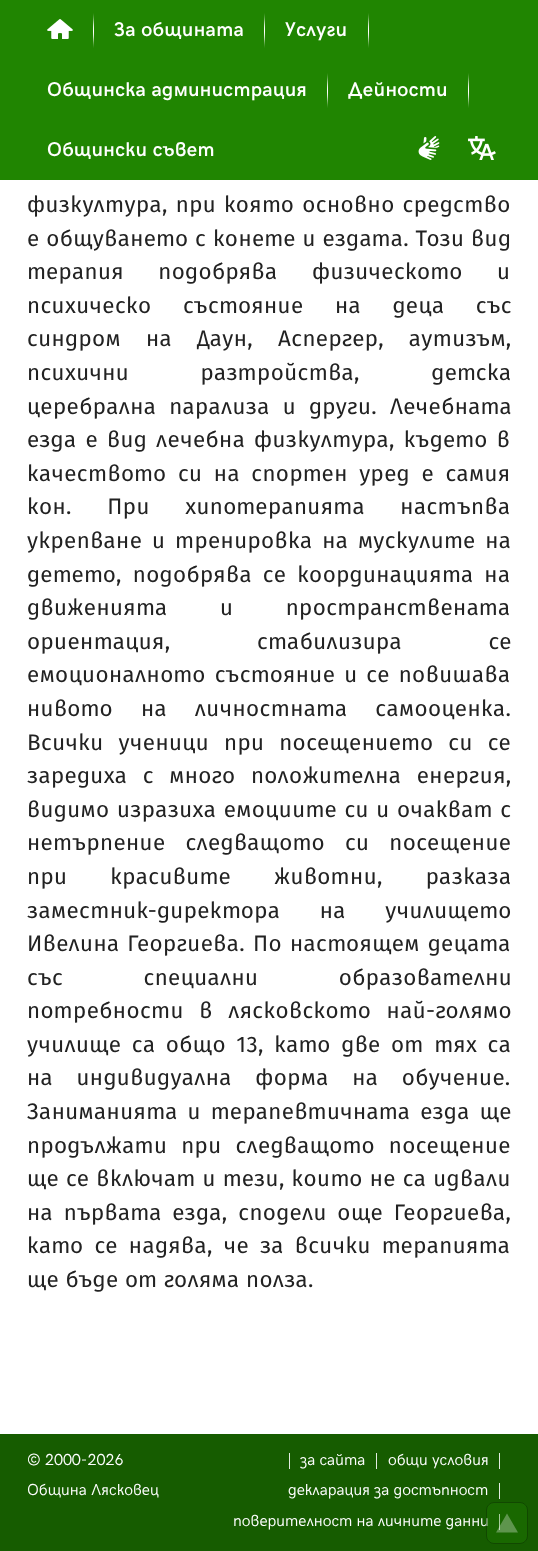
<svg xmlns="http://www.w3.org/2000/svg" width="538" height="1551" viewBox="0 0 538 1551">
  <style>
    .t1 { font: 600 20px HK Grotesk; letter-spacing: 0.4px; fill: #fff; }
    .t2 { font: 22.4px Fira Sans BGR; letter-spacing: 0.45px; fill: #222; }
    .t3 { font: 16px HK Grotesk; fill: #fff; }
  </style>
  <rect width="100%" height="100%" fill="#fff"/>
  <rect x="0" y="0" width="538" height="180" fill="#208501"/>
  <image x="47" y="19" width="26" height="20" href="images/1.png"/>
  <image x="93" y="13" width="1" height="35" href="images/2.png"/>
  <text x="114" y="36" class="t1">За общината</text>
  <image x="264" y="13" width="1" height="35" href="images/2.png"/>
  <text x="285" y="36" class="t1">Услуги</text>
  <image x="368" y="13" width="1" height="35" href="images/2.png"/>
  <text x="47" y="96" class="t1">Общинска администрация</text>
  <image x="327" y="73" width="1" height="35" href="images/2.png"/>
  <text x="348" y="96" class="t1">Дейности</text>
  <image x="468" y="73" width="1" height="35" href="images/2.png"/>
  <text x="47" y="156" class="t1">Общински съвет</text>
  <image x="418" y="136" width="22" height="24" href="images/3.png"/>
  <image x="468" y="136" width="28" height="24" href="images/4.png"/>
  <text x="27" y="212" word-spacing="1.5" class="t2">физкултура, при която основно средство</text>
  <text x="27" y="246" word-spacing="0.25" class="t2">е общуването с конете и ездата. Този вид</text>
  <text x="27" y="279" word-spacing="28" class="t2">терапия подобрява физическото и</text>
  <text x="27" y="313" word-spacing="25" class="t2">психическо състояние на деца със</text>
  <text x="27" y="346" word-spacing="18.5" class="t2">синдром на Даун, Аспергер, аутизъм,</text>
  <text x="27" y="380" word-spacing="65" class="t2">психични разтройства, детска</text>
  <text x="27" y="414" word-spacing="6.5" class="t2">церебрална парализа и други. Лечебната</text>
  <text x="27" y="447" word-spacing="2.5" class="t2">езда е вид лечебна физкултура, където в</text>
  <text x="27" y="481" word-spacing="5" class="t2">качеството си на спортен уред е самия</text>
  <text x="27" y="514" word-spacing="29" class="t2">кон. При хипотерапията настъпва</text>
  <text x="27" y="548" word-spacing="3.25" class="t2">укрепване и тренировка на мускулите на</text>
  <text x="27" y="582" word-spacing="4.5" class="t2">детето, подобрява се координацията на</text>
  <text x="27" y="615" word-spacing="46" class="t2">движенията и пространствената</text>
  <text x="27" y="649" word-spacing="80" class="t2">ориентация, стабилизира се</text>
  <text x="27" y="682" word-spacing="2.5" class="t2">емоционалното състояние и се повишава</text>
  <text x="27" y="716" word-spacing="21.5" class="t2">нивото на личностната самооценка.</text>
  <text x="27" y="750" word-spacing="8.5" class="t2">Всички ученици при посещението си се</text>
  <text x="27" y="783" word-spacing="9" class="t2">заредиха с много положителна енергия,</text>
  <text x="27" y="817" word-spacing="1" class="t2">видимо изразиха емоциите си и очакват с</text>
  <text x="27" y="850" word-spacing="13.5" class="t2">нетърпение следващото си посещение</text>
  <text x="27" y="884" word-spacing="36.5" class="t2">при красивите животни, разказа</text>
  <text x="27" y="918" word-spacing="33" class="t2">заместник-директора на училището</text>
  <text x="27" y="951" word-spacing="1.5" class="t2">Ивелина Георгиева. По настоящем децата</text>
  <text x="27" y="985" word-spacing="74" class="t2">със специални образователни</text>
  <text x="27" y="1018" word-spacing="9" class="t2">потребности в лясковското най-голямо</text>
  <text x="27" y="1052" word-spacing="4" class="t2">училище са общо 13, като две от тях са</text>
  <text x="27" y="1085" word-spacing="17" class="t2">на индивидуална форма на обучение.</text>
  <text x="27" y="1119" word-spacing="3.5" class="t2">Заниманията и терапевтичната езда ще</text>
  <text x="27" y="1153" word-spacing="7.5" class="t2">продължати при следващото посещение</text>
  <text x="27" y="1186" word-spacing="0.5" class="t2">ще се включат и тези, които не са идвали</text>
  <text x="27" y="1220" word-spacing="4.25" class="t2">на първата езда, сподели още Георгиева,</text>
  <text x="27" y="1253" word-spacing="4.5" class="t2">като се надява, че за всички терапията</text>
  <text x="27" y="1287" class="t2">ще бъде от голяма полза.</text>
  <rect x="0" y="1434" width="538" height="117" fill="#165c00"/>
  <text x="27" y="1465" class="t3">© 2000-2026</text>
  <text x="27" y="1495" class="t3">Община Лясковец</text>
  <text x="287" y="1465" class="t3">|</text>
  <text x="300" y="1465" class="t3">за сайта</text>
  <text x="374" y="1465" class="t3">|</text>
  <text x="388" y="1465" class="t3">общи условия</text>
  <text x="497" y="1465" class="t3">|</text>
  <text x="288" y="1495" class="t3">декларация за достъпност</text>
  <text x="497" y="1495" class="t3">|</text>
  <text x="233" y="1526" class="t3">поверителност на личните данни</text>
  <text x="497" y="1526" class="t3">|</text>
  <rect x="486" y="1502" width="42" height="42" rx="8" fill="#2085014d"/>
  <rect x="486.5" y="1502.5" width="41" height="41" rx="7.5" fill="none" stroke="#0000004d"/>
  <path d="M507 1513.5L518 1532.5H496L501.5 1523Z" fill="#ffffff4d" fill-rule="evenodd"/>
</svg>
